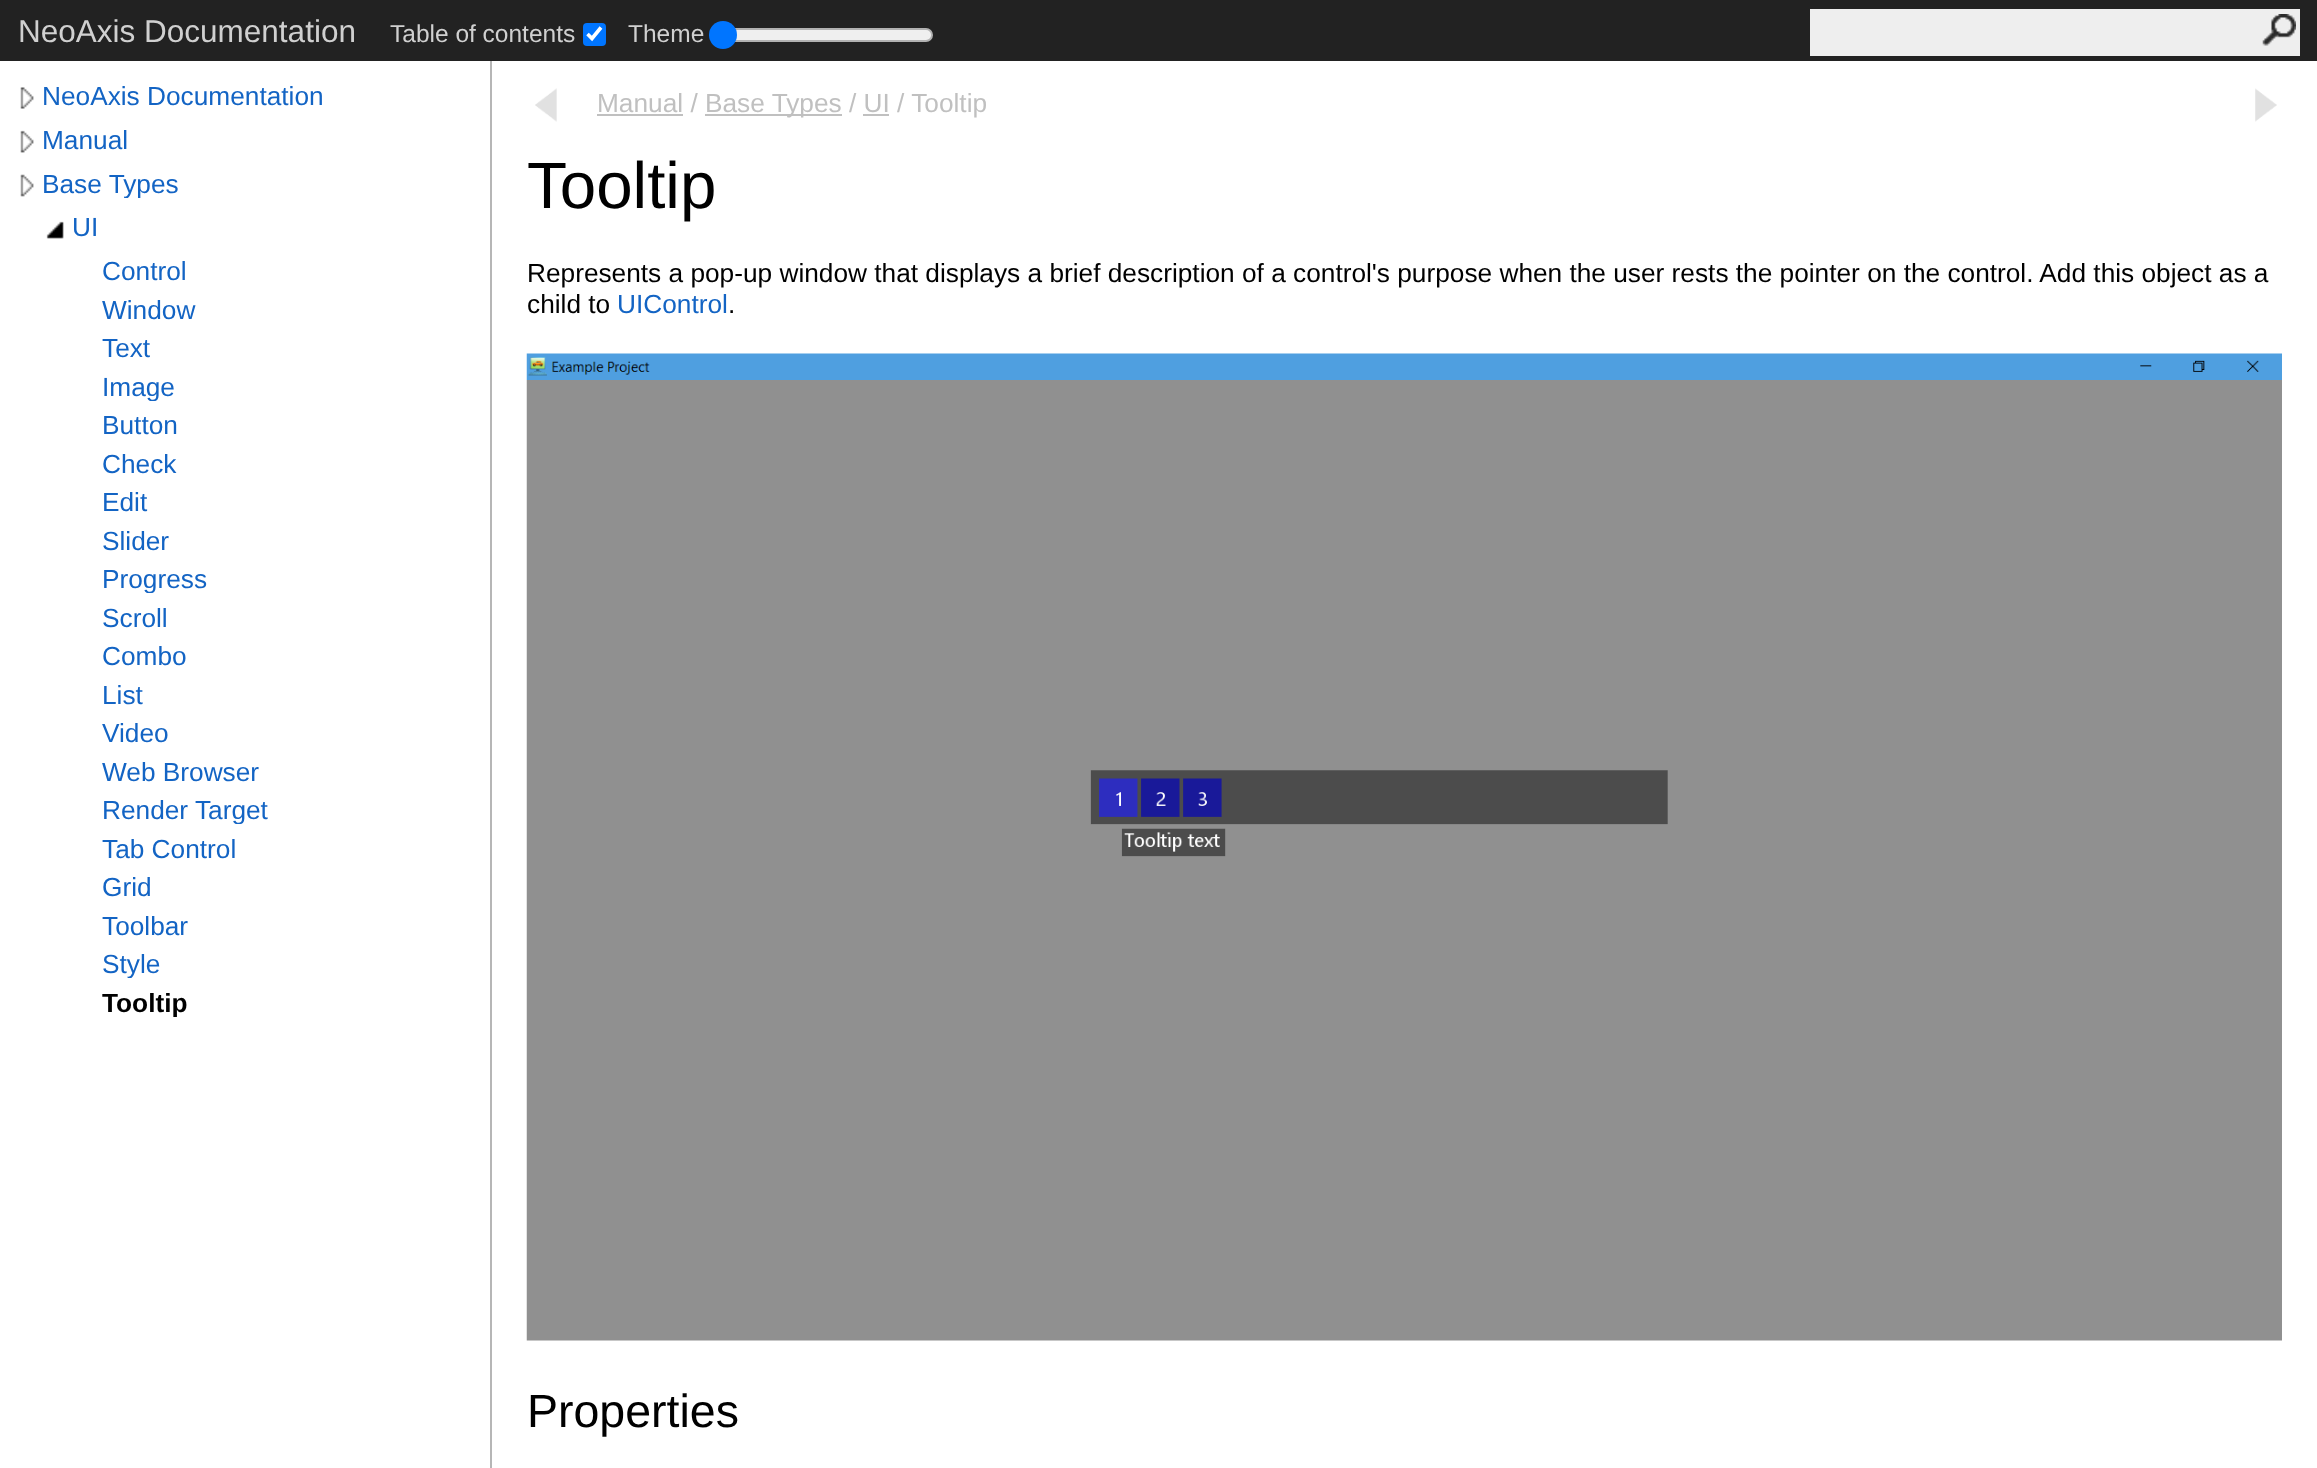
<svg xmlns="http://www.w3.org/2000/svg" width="2317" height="1468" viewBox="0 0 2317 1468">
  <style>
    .t1 { font: 31.5px Liberation Sans; fill: #d0d0d0; }
    .t2 { font: 24.5px Liberation Sans; fill: #d0d0d0; }
    .t3 { font: 26.25px Liberation Sans; fill: #1364c4; }
    .t4 { font: bold 26.25px Liberation Sans; fill: #000; }
    .t5 { font: 26.25px Liberation Sans; fill: #c0c0c0; }
    .t6 { font: 65.5px Liberation Sans; fill: #000; }
    .t7 { font: 26.25px Liberation Sans; fill: #000; }
    .t8 { font: 46.5px Liberation Sans; fill: #000; }
  </style>
  <defs>
    <clipPath id="clip1"><rect x="42" y="168" width="466" height="30"/></clipPath>
    <clipPath id="clip2"><rect x="102" y="371" width="406" height="30"/></clipPath>
    <clipPath id="clip3"><rect x="102" y="564" width="406" height="29"/></clipPath>
    <clipPath id="clip4"><rect x="102" y="795" width="406" height="29"/></clipPath>
    <clipPath id="clip5"><rect x="102" y="949" width="406" height="29"/></clipPath>
    <clipPath id="clip6"><rect x="102" y="987" width="406" height="30"/></clipPath>
  </defs>
  <rect width="100%" height="100%" fill="#fff"/>
  <rect x="0" y="0" width="2317" height="61" fill="#222"/>
  <text x="18" y="42" class="t1">NeoAxis Documentation</text>
  <text x="390" y="42" class="t2">Table of contents</text>
  <rect x="583" y="23" width="23" height="23" rx="4" fill="#0075ff"/>
  <path d="M587.5 34L592 38.5L601 27.5" fill="none" stroke="#fff" stroke-width="3.6"/>
  <text x="628" y="42" class="t2">Theme</text>
  <rect x="712" y="29" width="220" height="12" rx="6" fill="#efefef" stroke="#b2b2b2" stroke-width="2"/>
  <circle cx="723" cy="35" r="14" fill="#0075ff"/>
  <rect x="1810" y="9" width="490" height="47" fill="#eee"/>
  <image x="2262" y="14" width="34" height="32" href="images/1.png"/>
  <image x="20" y="87" width="14" height="22" href="images/2.png"/>
  <text x="42" y="105" class="t3">NeoAxis Documentation</text>
  <image x="20" y="130" width="14" height="23" href="images/3.png"/>
  <text x="42" y="149" class="t3">Manual</text>
  <image x="20" y="174" width="14" height="23" href="images/4.png"/>
  <g clip-path="url(#clip1)">
    <text x="42" y="193" class="t3">Base Types</text>
  </g>
  <image x="46" y="221" width="18" height="18" href="images/5.png"/>
  <text x="72" y="236" class="t3">UI</text>
  <text x="102" y="280" class="t3">Control</text>
  <text x="102" y="319" class="t3">Window</text>
  <text x="102" y="357" class="t3">Text</text>
  <g clip-path="url(#clip2)">
    <text x="102" y="396" class="t3">Image</text>
  </g>
  <text x="102" y="434" class="t3">Button</text>
  <text x="102" y="473" class="t3">Check</text>
  <text x="102" y="511" class="t3">Edit</text>
  <text x="102" y="550" class="t3">Slider</text>
  <g clip-path="url(#clip3)">
    <text x="102" y="588" class="t3">Progress</text>
  </g>
  <text x="102" y="627" class="t3">Scroll</text>
  <text x="102" y="665" class="t3">Combo</text>
  <text x="102" y="704" class="t3">List</text>
  <text x="102" y="742" class="t3">Video</text>
  <text x="102" y="781" class="t3">Web Browser</text>
  <g clip-path="url(#clip4)">
    <text x="102" y="819" class="t3">Render Target</text>
  </g>
  <text x="102" y="858" class="t3">Tab Control</text>
  <text x="102" y="896" class="t3">Grid</text>
  <text x="102" y="935" class="t3">Toolbar</text>
  <g clip-path="url(#clip5)">
    <text x="102" y="973" class="t3">Style</text>
  </g>
  <g clip-path="url(#clip6)">
    <text x="102" y="1012" class="t4">Tooltip</text>
  </g>
  <rect x="490" y="61" width="2" height="1407" fill="#b6b6b6"/>
  <image x="535" y="88" width="22" height="34" href="images/6.png"/>
  <text x="597" y="112" class="t5">Manual /</text>
  <rect x="597" y="114" width="86" height="2" fill="#c0c0c0"/>
  <rect x="705" y="114" width="137" height="2" fill="#c0c0c0"/>
  <text x="705" y="112" class="t5">Base Types / UI / Tooltip</text>
  <rect x="863" y="114" width="26" height="2" fill="#c0c0c0"/>
  <image x="2255" y="88" width="22" height="34" href="images/7.png"/>
  <text x="527" y="208" class="t6">Tooltip</text>
  <text x="527" y="282" class="t7">Represents a pop-up window that displays a brief description of a control's purpose when the user rests the pointer on the control. Add this object as a</text>
  <text x="527" y="313" class="t7">child to</text>
  <text x="617" y="313" class="t3">UIControl</text>
  <text x="728" y="313" class="t7">.</text>
  <image x="526" y="353" width="1756" height="988" href="images/8.png"/>
  <text x="527" y="1427" class="t8">Properties</text>
</svg>
